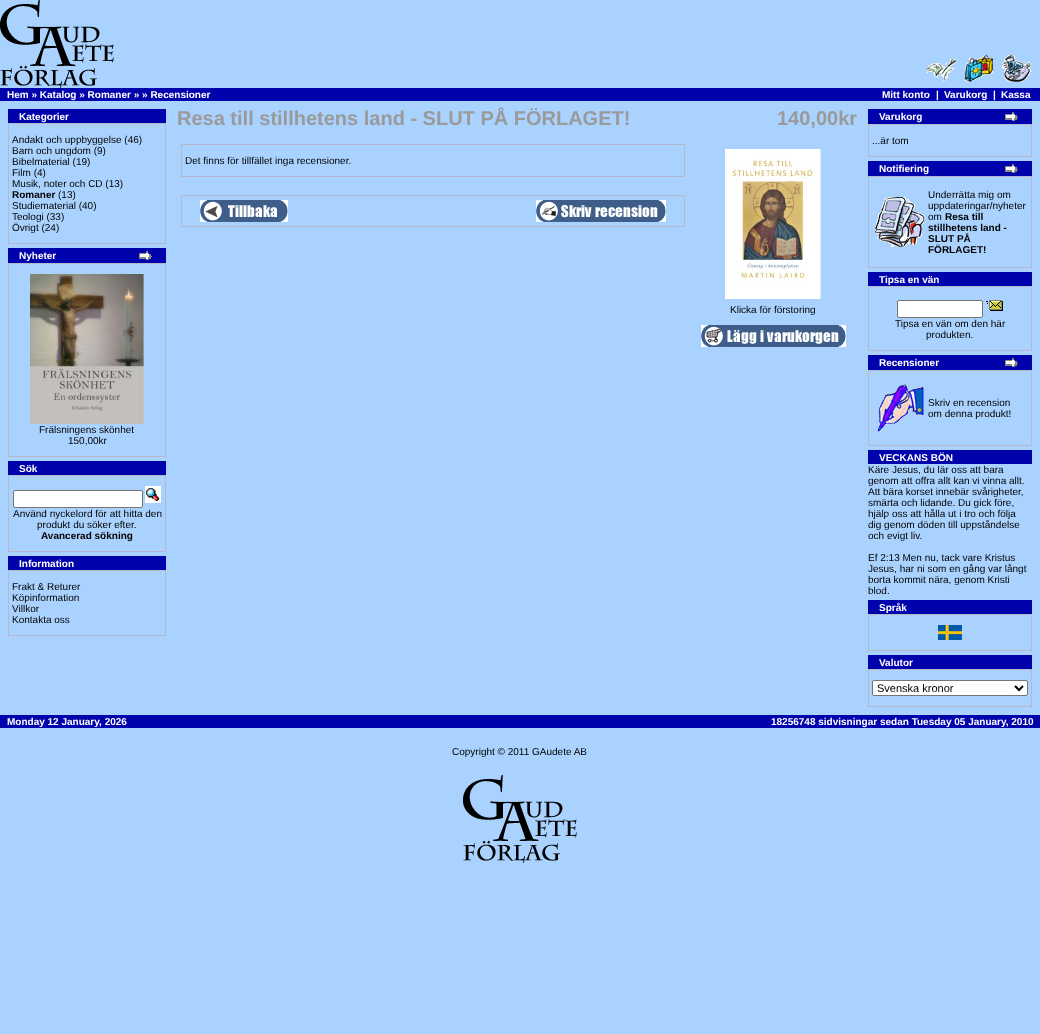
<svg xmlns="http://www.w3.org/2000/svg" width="1040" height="1034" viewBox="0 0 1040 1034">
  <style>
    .t1 { font: bold 10px Liberation Sans; fill: #fff; }
    .t2 { font: 10px Liberation Sans; fill: #000; }
    .t3 { font: bold 10px Liberation Sans; fill: #000; }
    .t4 { font: bold 20px Liberation Sans; fill: #9a9a9a; }
    .t5 { font: 11px Liberation Sans; fill: #000; }
  </style>
  <rect width="100%" height="100%" fill="#aad2ff"/>
  <image x="0" y="0" width="114" height="88" href="images/1.png"/>
  <image x="926" y="59" width="30" height="22" href="images/2.png"/>
  <image x="965" y="55" width="28" height="27" href="images/3.png"/>
  <image x="1002" y="55" width="29" height="27" href="images/4.png"/>
  <rect x="0" y="88" width="1040" height="13" fill="#0002ac"/>
  <text x="7" y="98" class="t1">Hem » Katalog » Romaner » » Recensioner</text>
  <text x="882" y="98" class="t1">Mitt konto</text>
  <text x="936" y="98" class="t1">|</text>
  <text x="944" y="98" class="t1">Varukorg</text>
  <text x="993" y="98" class="t1">|</text>
  <text x="1001" y="98" class="t1">Kassa</text>
  <rect x="8" y="109" width="158" height="14" fill="#0002ac"/>
  <text x="19" y="120" class="t1">Kategorier</text>
  <rect x="8" y="123" width="158" height="121" fill="#b6b7cb"/>
  <rect x="9" y="124" width="156" height="119" fill="#aad2ff"/>
  <text x="12" y="143" class="t2">Andakt och uppbyggelse (46)</text>
  <text x="12" y="154" class="t2">Barn och ungdom (9)</text>
  <text x="12" y="165" class="t2">Bibelmaterial (19)</text>
  <text x="12" y="176" class="t2">Film (4)</text>
  <text x="12" y="187" class="t2">Musik, noter och CD (13)</text>
  <text x="12" y="198" class="t3">Romaner</text>
  <text x="58" y="198" class="t2">(13)</text>
  <text x="12" y="209" class="t2">Studiematerial (40)</text>
  <text x="12" y="220" class="t2">Teologi (33)</text>
  <text x="12" y="231" class="t2">Övrigt (24)</text>
  <rect x="8" y="248" width="158" height="15" fill="#0002ac"/>
  <text x="19" y="259" class="t1">Nyheter</text>
  <image x="139" y="251" width="13" height="9" href="images/5.png"/>
  <rect x="8" y="263" width="158" height="194" fill="#b6b7cb"/>
  <rect x="9" y="264" width="156" height="192" fill="#aad2ff"/>
  <image x="30" y="274" width="114" height="150" href="images/6.png"/>
  <text x="39" y="433" class="t2">Frälsningens skönhet</text>
  <text x="68" y="444" class="t2">150,00kr</text>
  <rect x="8" y="461" width="158" height="14" fill="#0002ac"/>
  <text x="19" y="472" class="t1">Sök</text>
  <rect x="8" y="475" width="158" height="77" fill="#b6b7cb"/>
  <rect x="9" y="476" width="156" height="75" fill="#aad2ff"/>
  <rect x="13.5" y="490.5" width="129" height="17" rx="1.5" fill="#fff" stroke="#767676"/>
  <image x="145" y="486" width="16" height="17" href="images/7.png"/>
  <text x="13" y="517" class="t2">Använd nyckelord för att hitta den</text>
  <text x="37" y="528" class="t2">produkt du söker efter.</text>
  <text x="41" y="539" class="t3">Avancerad sökning</text>
  <rect x="8" y="556" width="158" height="14" fill="#0002ac"/>
  <text x="19" y="567" class="t1">Information</text>
  <rect x="8" y="570" width="158" height="66" fill="#b6b7cb"/>
  <rect x="9" y="571" width="156" height="64" fill="#aad2ff"/>
  <text x="12" y="590" class="t2">Frakt &amp; Returer</text>
  <text x="12" y="601" class="t2">Köpinformation</text>
  <text x="12" y="612" class="t2">Villkor</text>
  <text x="12" y="623" class="t2">Kontakta oss</text>
  <text x="177" y="125" class="t4">Resa till stillhetens land - SLUT PÅ FÖRLAGET!</text>
  <text x="777" y="125" class="t4">140,00kr</text>
  <rect x="181" y="144" width="504" height="33" fill="#b6b7cb"/>
  <rect x="182" y="145" width="502" height="31" fill="#aad2ff"/>
  <text x="185" y="164" class="t2">Det finns för tillfället inga recensioner.</text>
  <rect x="181" y="195" width="504" height="32" fill="#b6b7cb"/>
  <rect x="182" y="196" width="502" height="30" fill="#aad2ff"/>
  <image x="200" y="200" width="88" height="22" href="images/8.png"/>
  <image x="536" y="200" width="130" height="22" href="images/9.png"/>
  <image x="725" y="149" width="96" height="150" href="images/10.png"/>
  <text x="730" y="313" class="t2">Klicka för förstoring</text>
  <image x="701" y="325" width="145" height="22" href="images/11.png"/>
  <rect x="868" y="109" width="164" height="15" fill="#0002ac"/>
  <text x="879" y="120" class="t1">Varukorg</text>
  <image x="1005" y="112" width="13" height="9" href="images/5.png"/>
  <rect x="868" y="124" width="164" height="33" fill="#b6b7cb"/>
  <rect x="869" y="125" width="162" height="31" fill="#aad2ff"/>
  <text x="872" y="144" class="t2">...är tom</text>
  <rect x="868" y="161" width="164" height="15" fill="#0002ac"/>
  <text x="879" y="172" class="t1">Notifiering</text>
  <image x="1005" y="164" width="13" height="9" href="images/5.png"/>
  <rect x="868" y="176" width="164" height="92" fill="#b6b7cb"/>
  <rect x="869" y="177" width="162" height="90" fill="#aad2ff"/>
  <image x="875" y="197" width="49" height="50" href="images/12.png"/>
  <text x="928" y="198" class="t2">Underrätta mig om</text>
  <text x="928" y="209" class="t2">uppdateringar/nyheter</text>
  <text x="928" y="220" class="t2">om</text>
  <text x="945" y="220" class="t3">Resa till</text>
  <text x="928" y="231" class="t3">stillhetens land -</text>
  <text x="928" y="242" class="t3">SLUT PÅ</text>
  <text x="928" y="253" class="t3">FÖRLAGET!</text>
  <rect x="868" y="272" width="164" height="14" fill="#0002ac"/>
  <text x="879" y="283" class="t1">Tipsa en vän</text>
  <rect x="868" y="286" width="164" height="65" fill="#b6b7cb"/>
  <rect x="869" y="287" width="162" height="63" fill="#aad2ff"/>
  <rect x="897.5" y="300.5" width="85" height="17" rx="1.5" fill="#fff" stroke="#767676"/>
  <image x="986" y="300" width="17" height="11" href="images/13.png"/>
  <text x="895" y="327" class="t2">Tipsa en vän om den här</text>
  <text x="926" y="338" class="t2">produkten.</text>
  <rect x="868" y="355" width="164" height="15" fill="#0002ac"/>
  <text x="879" y="366" class="t1">Recensioner</text>
  <image x="1005" y="358" width="13" height="9" href="images/5.png"/>
  <rect x="868" y="370" width="164" height="76" fill="#b6b7cb"/>
  <rect x="869" y="371" width="162" height="74" fill="#aad2ff"/>
  <image x="877" y="384" width="47" height="48" href="images/14.png"/>
  <text x="928" y="406" class="t2">Skriv en recension</text>
  <text x="928" y="417" class="t2">om denna produkt!</text>
  <rect x="868" y="450" width="164" height="14" fill="#0002ac"/>
  <text x="879" y="461" class="t1">VECKANS BÖN</text>
  <text x="868" y="473" class="t2">Käre Jesus, du lär oss att bara</text>
  <text x="868" y="484" class="t2">genom att offra allt kan vi vinna allt.</text>
  <text x="868" y="495" class="t2">Att bära korset innebär svårigheter,</text>
  <text x="868" y="506" class="t2">smärta och lidande. Du gick före,</text>
  <text x="868" y="517" class="t2">hjälp oss att hålla ut i tro och följa</text>
  <text x="868" y="528" class="t2">dig genom döden till uppståndelse</text>
  <text x="868" y="539" class="t2">och evigt liv.</text>
  <text x="868" y="561" class="t2">Ef 2:13 Men nu, tack vare Kristus</text>
  <text x="868" y="572" class="t2">Jesus, har ni som en gång var långt</text>
  <text x="868" y="583" class="t2">borta kommit nära, genom Kristi</text>
  <text x="868" y="594" class="t2">blod.</text>
  <rect x="868" y="600" width="164" height="14" fill="#0002ac"/>
  <text x="879" y="611" class="t1">Språk</text>
  <rect x="868" y="614" width="164" height="37" fill="#b6b7cb"/>
  <rect x="869" y="615" width="162" height="35" fill="#aad2ff"/>
  <image x="938" y="625" width="24" height="15" href="images/15.png"/>
  <rect x="868" y="655" width="164" height="14" fill="#0002ac"/>
  <text x="879" y="666" class="t1">Valutor</text>
  <rect x="868" y="669" width="164" height="38" fill="#b6b7cb"/>
  <rect x="869" y="670" width="162" height="36" fill="#aad2ff"/>
  <rect x="872.5" y="680.5" width="155" height="15" rx="1.5" fill="#fff" stroke="#767676"/>
  <path d="M1015 686L1019 690L1023 686" fill="none" stroke="#000" stroke-width="2"/>
  <text x="877" y="692" class="t5">Svenska kronor</text>
  <rect x="0" y="715" width="1040" height="13" fill="#0002ac"/>
  <text x="7" y="725" class="t1">Monday 12 January, 2026</text>
  <text x="771" y="725" class="t1">18256748 sidvisningar sedan Tuesday 05 January, 2010</text>
  <text x="452" y="755" class="t2">Copyright © 2011 GAudete AB</text>
  <image x="463" y="775" width="114" height="88" href="images/1.png"/>
</svg>
